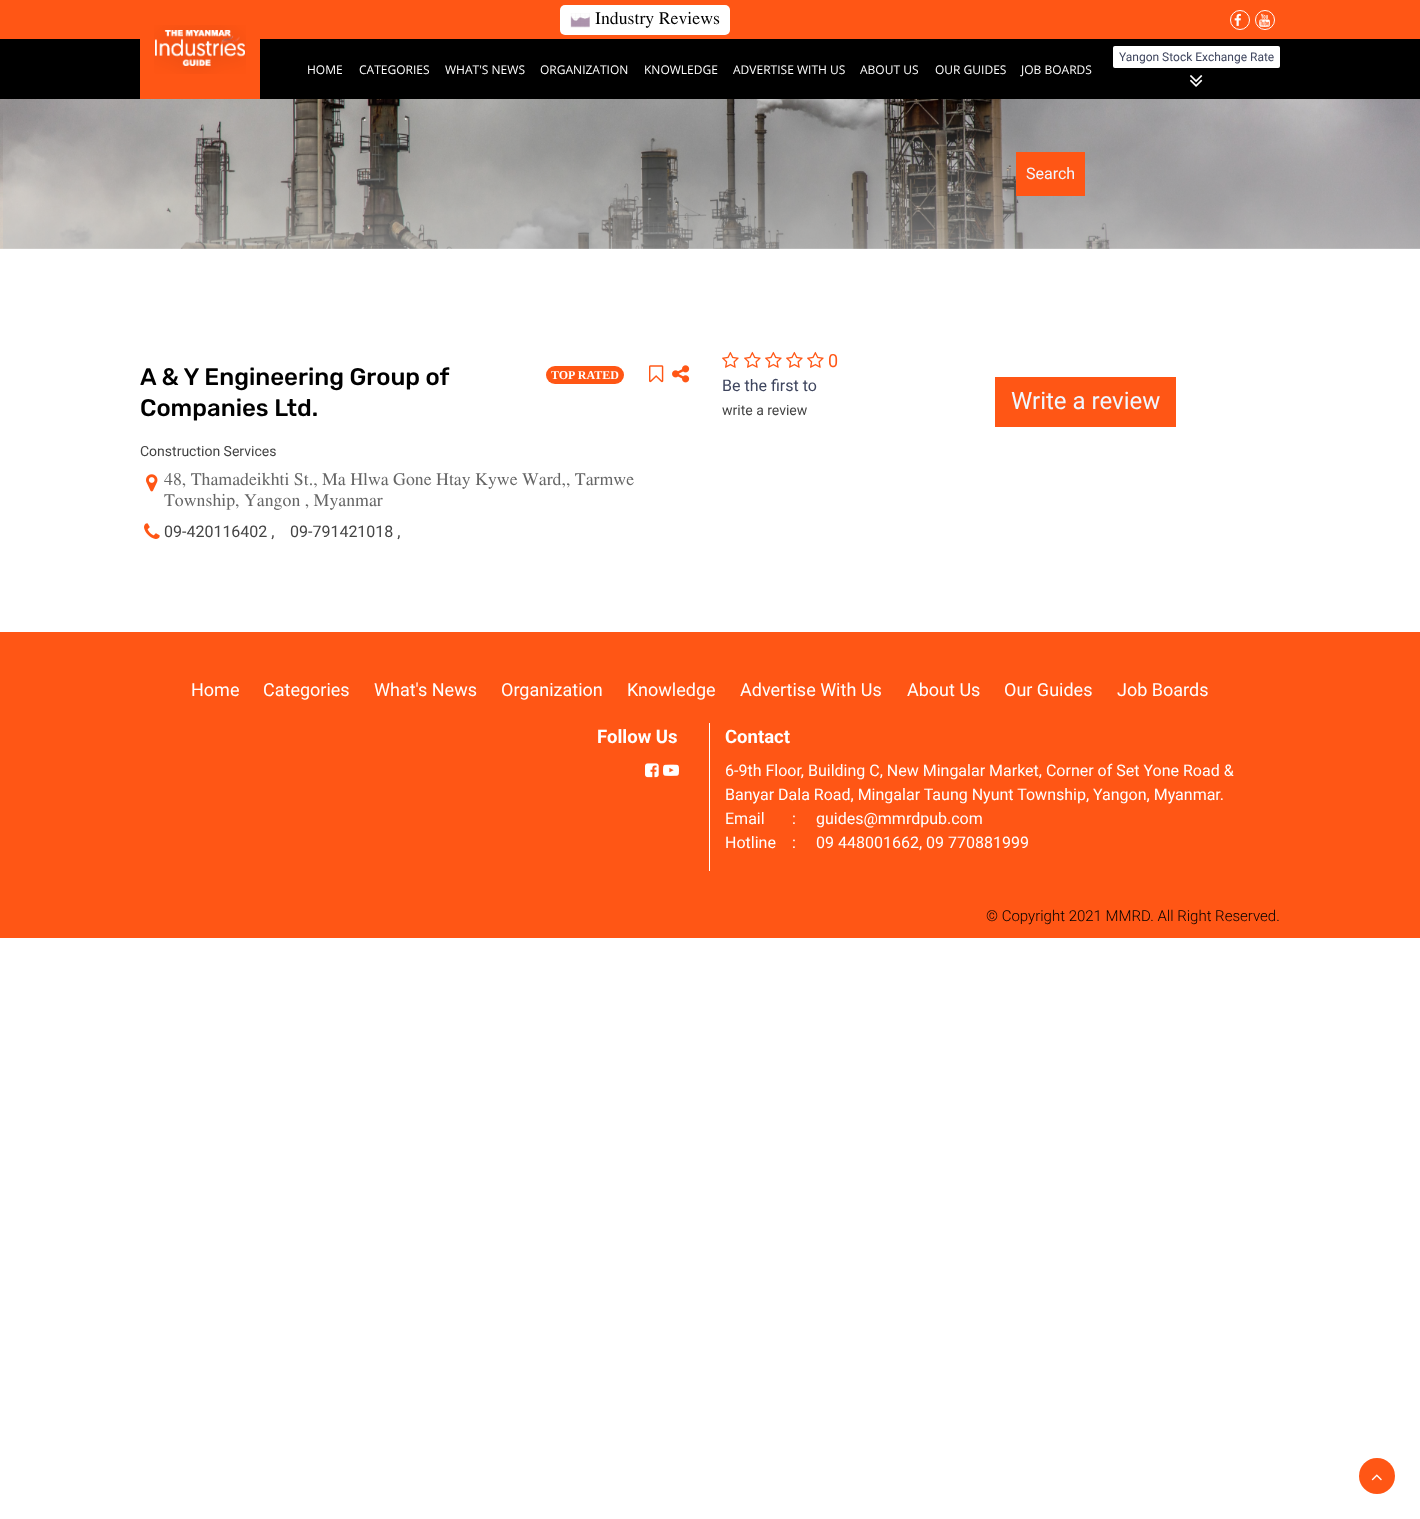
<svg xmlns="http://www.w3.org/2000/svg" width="1420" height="1519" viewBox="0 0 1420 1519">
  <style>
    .t1 { font: 16px 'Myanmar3'; fill: #000; }
    .t2 { font: 12px Roboto; fill: #3e455e; }
    .t3 { font: 12px Open Sans; fill: #fff; }
    .t4 { font: 16px Roboto; fill: #f1f7ff; }
    .t5 { font: 500 24px Rubik; fill: #000; }
    .t6 { font: bold 12px Liberation Serif; fill: #fff; }
    .t7 { font: 14px Roboto; fill: #444; }
    .t8 { font: 16px 'Myanmar3'; fill: #666; }
    .t9 { font: 16px Roboto; fill: #444; }
    .t10 { font: 18px Roboto; fill: #ff5615; }
    .t11 { font: 16px Roboto; fill: #3e455e; }
    .t12 { font: 24px Roboto; fill: #f1f7ff; }
    .t13 { font: 18px Roboto; fill: #fff; }
    .t14 { font: bold 18.5px Roboto; fill: #fff; }
    .t15 { font: 16px Roboto; fill: #fff; }
    .t16 { font: 300 15px Roboto; fill: #000; }
  </style>
  <rect width="100%" height="100%" fill="#fff"/>
  <rect x="0" y="0" width="1420" height="39" fill="#ff5615"/>
  <rect x="560" y="5" width="170" height="30" rx="5" fill="#fff"/>
  <image x="570" y="13" width="20" height="15" href="images/1.png"/>
  <text x="595" y="24" class="t1">Industry Reviews</text>
  <circle cx="1240" cy="20" r="9.5" fill="none" stroke="#fff"/>
  <image x="1234" y="13" width="7" height="13" href="images/2.png"/>
  <circle cx="1265" cy="20" r="9.5" fill="none" stroke="#fff"/>
  <image x="1259" y="13" width="11" height="14" href="images/3.png"/>
  <rect x="0" y="39" width="1420" height="60" fill="#000"/>
  <rect x="140" y="39" width="120" height="60" fill="#ff5615"/>
  <image x="154" y="25" width="92" height="49" href="images/4.png"/>
  <rect x="1113.5" y="46.5" width="166" height="21" rx="1" fill="#fff" stroke="#fff"/>
  <text x="1119" y="61" class="t2">Yangon Stock Exchange Rate</text>
  <image x="1190" y="75" width="13" height="12" href="images/5.png"/>
  <text x="307" y="74" class="t3">HOME</text>
  <text x="359" y="74" class="t3">CATEGORIES</text>
  <text x="445" y="74" class="t3">WHAT'S NEWS</text>
  <text x="540" y="74" class="t3">ORGANIZATION</text>
  <text x="644" y="74" class="t3">KNOWLEDGE</text>
  <text x="733" y="74" class="t3">ADVERTISE WITH US</text>
  <text x="860" y="74" class="t3">ABOUT US</text>
  <text x="935" y="74" class="t3">OUR GUIDES</text>
  <text x="1021" y="74" class="t3">JOB BOARDS</text>
  <image x="0" y="99" width="1420" height="150" href="images/6.png"/>
  <rect x="1016" y="152" width="69" height="44" fill="#ff5615"/>
  <text x="1026" y="179" class="t4">Search</text>
  <text x="140" y="385" class="t5">A &amp; Y Engineering Group of</text>
  <text x="140" y="416" class="t5">Companies Ltd.</text>
  <rect x="546" y="366" width="78" height="18" rx="9" fill="#ff5615"/>
  <text x="551" y="379" class="t6">TOP RATED</text>
  <image x="649" y="365" width="15" height="18" href="images/7.png"/>
  <image x="672" y="365" width="18" height="18" href="images/8.png"/>
  <text x="140" y="456" class="t7">Construction Services</text>
  <image x="146" y="474" width="12" height="18" href="images/9.png"/>
  <text x="164" y="485" class="t8">48, Thamadeikhti St., Ma Hlwa Gone Htay Kywe Ward,, Tarmwe</text>
  <text x="164" y="506" class="t8">Township, Yangon , Myanmar</text>
  <image x="144" y="523" width="16" height="16" href="images/10.png"/>
  <text x="164" y="537" class="t9">09-420116402 ,</text>
  <text x="290" y="537" class="t9">09-791421018 ,</text>
  <image x="722" y="351" width="17" height="17" href="images/11.png"/>
  <image x="744" y="351" width="17" height="17" href="images/11.png"/>
  <image x="765" y="351" width="17" height="17" href="images/11.png"/>
  <image x="786" y="351" width="17" height="17" href="images/11.png"/>
  <image x="807" y="351" width="17" height="17" href="images/11.png"/>
  <text x="828" y="367" class="t10">0</text>
  <text x="722" y="391" class="t11">Be the first to</text>
  <text x="722" y="415" class="t7">write a review</text>
  <rect x="995" y="377" width="181" height="50" fill="#ff5615"/>
  <text x="1011" y="409" class="t12">Write a review</text>
  <rect x="0" y="632" width="1420" height="306" fill="#ff5615"/>
  <text x="191" y="696" class="t13">Home</text>
  <text x="263" y="696" class="t13">Categories</text>
  <text x="374" y="696" class="t13">What's News</text>
  <text x="501" y="696" class="t13">Organization</text>
  <text x="627" y="696" class="t13">Knowledge</text>
  <text x="740" y="696" class="t13">Advertise With Us</text>
  <text x="907" y="696" class="t13">About Us</text>
  <text x="1004" y="696" class="t13">Our Guides</text>
  <text x="1117" y="696" class="t13">Job Boards</text>
  <rect x="709" y="723" width="1" height="148" fill="#fff"/>
  <text x="597" y="743" class="t14">Follow Us</text>
  <image x="645" y="763" width="14" height="15" href="images/12.png"/>
  <image x="663" y="764" width="16" height="12" href="images/13.png"/>
  <text x="725" y="743" class="t14">Contact</text>
  <text x="725" y="776" class="t15">6-9th Floor, Building C, New Mingalar Market, Corner of Set Yone Road &amp;</text>
  <text x="725" y="800" class="t15">Banyar Dala Road, Mingalar Taung Nyunt Township, Yangon, Myanmar.</text>
  <text x="725" y="824" class="t15">Email</text>
  <text x="792" y="824" class="t15">:</text>
  <text x="816" y="824" class="t15">guides@mmrdpub.com</text>
  <text x="725" y="848" class="t15">Hotline</text>
  <text x="792" y="848" class="t15">:</text>
  <text x="816" y="848" class="t15">09 448001662, 09 770881999</text>
  <text x="986" y="921" class="t16">© Copyright 2021 MMRD. All Right Reserved.</text>
  <circle cx="1377" cy="1476" r="18" fill="#ff5615"/>
  <image x="1371" y="1474" width="11" height="7" href="images/14.png"/>
</svg>
